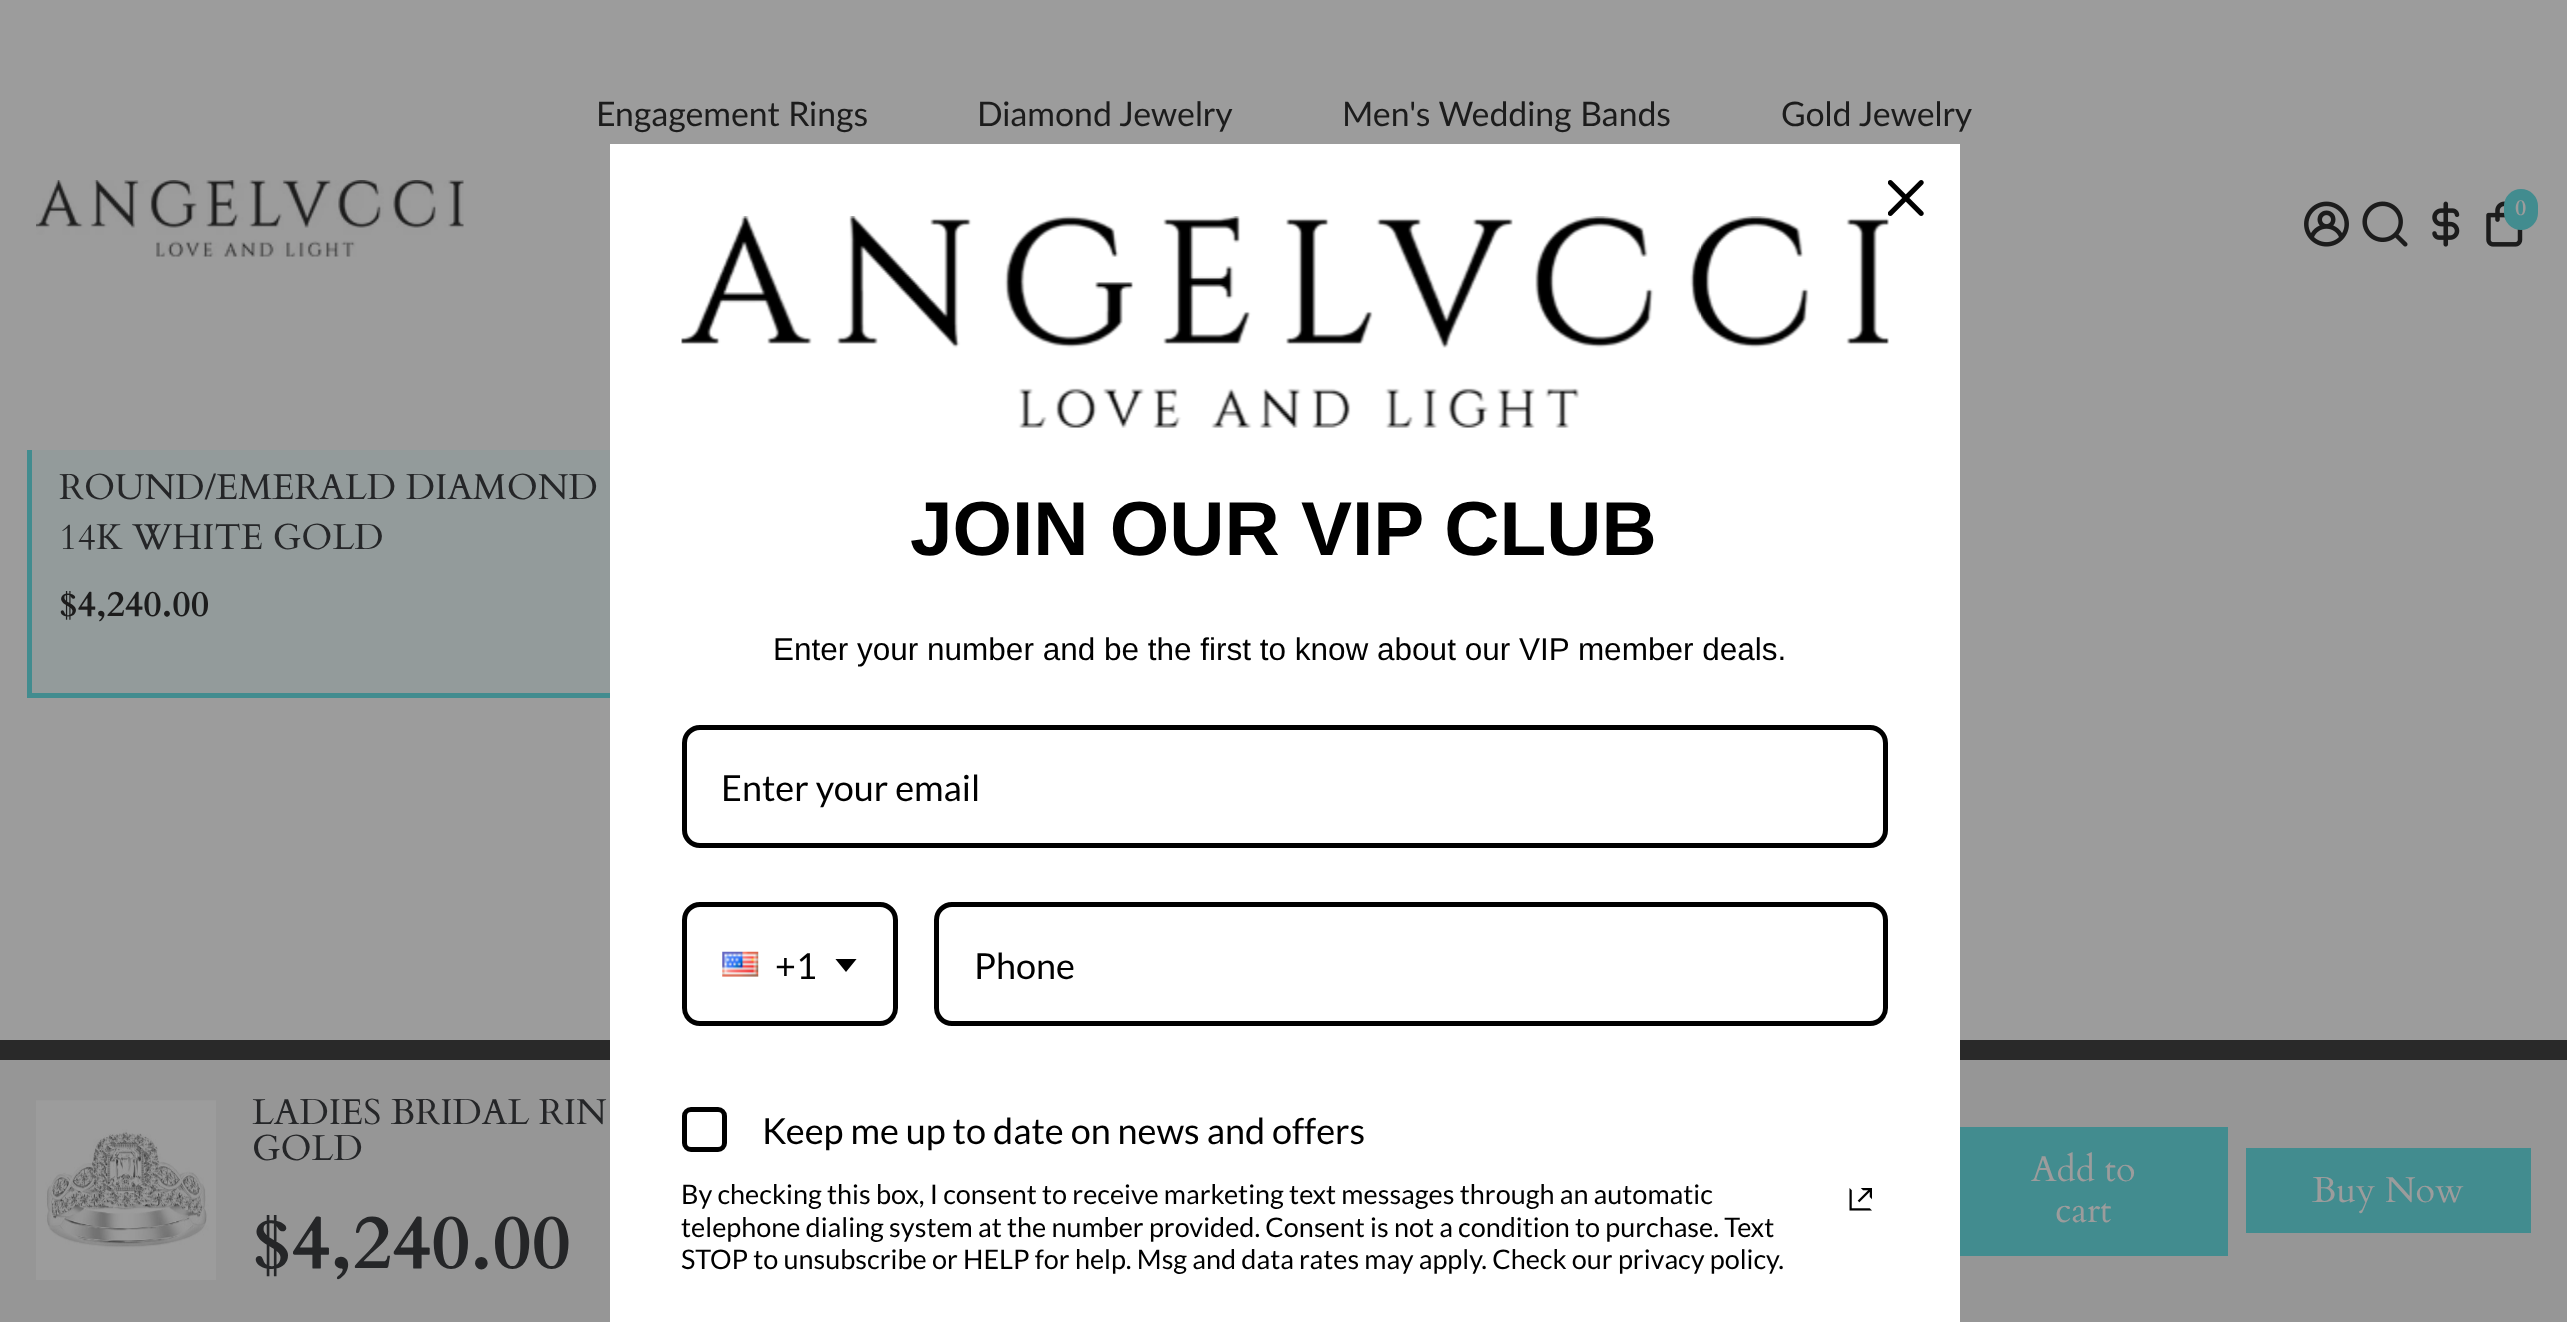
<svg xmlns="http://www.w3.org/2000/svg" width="2567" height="1322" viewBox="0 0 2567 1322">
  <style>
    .t1 { font: 33.75px Lato; fill: #1c1c1c; }
    .t2 { font: bold 22px Cardo; fill: #9c9c9c; }
    .t3 { font: 36px Cardo; fill: #252628; }
    .t4 { font: bold 36px Cardo; fill: #1c1c1c; }
    .t5 { font: bold 76.5px Cardo; fill: #252628; }
    .t6 { font: 36px Cardo; fill: #9c9c9c; }
    .t7 { font: bold 76.5px Liberation Sans; fill: #000; }
    .t8 { font: 31.5px Liberation Sans; fill: #000; }
    .t9 { font: 36px 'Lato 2'; fill: #000; }
    .t10 { font: 27px 'Lato 2'; fill: #000; }
  </style>
  <defs>
    <clipPath id="clip1"><rect x="835" y="959" width="22" height="13"/></clipPath>
  </defs>
  <rect width="100%" height="100%" fill="#9c9c9c"/>
  <rect x="32" y="450" width="578" height="243" fill="#939b9b"/>
  <rect x="29.5" y="-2.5" width="670" height="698" fill="none" stroke="#428c8f" stroke-width="5"/>
  <rect x="27" y="0" width="675" height="450" fill="#9c9c9c"/>
  <text x="596" y="126" class="t1">Engagement Rings</text>
  <text x="977" y="126" class="t1">Diamond Jewelry</text>
  <text x="1342" y="126" class="t1">Men's Wedding Bands</text>
  <text x="1781" y="126" class="t1">Gold Jewelry</text>
  <image x="36" y="180" width="428" height="77" href="images/1.png"/>
  <image x="2304" y="201" width="45" height="46" href="images/2.png"/>
  <image x="2362" y="201" width="46" height="46" href="images/3.png"/>
  <image x="2432" y="201" width="28" height="46" href="images/4.png"/>
  <image x="2486" y="201" width="37" height="46" href="images/5.png"/>
  <rect x="2504" y="189" width="34" height="41" rx="17" fill="#428c8f"/>
  <text x="2515" y="215" class="t2">0</text>
  <text x="59" y="499" class="t3">ROUND/EMERALD DIAMOND</text>
  <text x="59" y="549" class="t3">14K WHITE GOLD</text>
  <text x="59" y="616" class="t4">$4,240.00</text>
  <rect x="0" y="1040" width="2567" height="20" fill="#292929"/>
  <rect x="0" y="1060" width="2567" height="262" fill="#969696"/>
  <image x="36" y="1100" width="180" height="180" href="images/6.png"/>
  <text x="252" y="1124" class="t3">LADIES BRIDAL RIN</text>
  <text x="252" y="1160" class="t3">GOLD</text>
  <text x="252" y="1268" class="t5">$4,240.00</text>
  <rect x="1960" y="1127" width="268" height="129" fill="#428c8f"/>
  <text x="2031" y="1181" class="t6">Add to</text>
  <text x="2055" y="1222" class="t6">cart</text>
  <rect x="2246" y="1148" width="285" height="85" fill="#428c8f"/>
  <text x="2312" y="1202" class="t6">Buy Now</text>
  <rect x="610" y="144" width="1350" height="1178" fill="#fff"/>
  <image x="1888" y="180" width="36" height="36" href="images/7.png"/>
  <image x="681" y="216" width="1208" height="212" href="images/8.png"/>
  <text x="910" y="555" class="t7">JOIN OUR VIP CLUB</text>
  <text x="773" y="660" class="t8">Enter your number and be the first to know about our VIP member deals.</text>
  <rect x="684.5" y="727.5" width="1201" height="118" rx="15.5" fill="none" stroke="#000" stroke-width="5"/>
  <text x="721" y="801" class="t9">Enter your email</text>
  <rect x="684.5" y="904.5" width="211" height="119" rx="15.5" fill="none" stroke="#000" stroke-width="5"/>
  <image x="722" y="951" width="37" height="26" href="images/9.png"/>
  <text x="775" y="979" class="t9">+1</text>
  <g clip-path="url(#clip1)">
    <path d="M835 958.5H857L846 972Z" fill="#000" fill-rule="evenodd"/>
  </g>
  <rect x="936.5" y="904.5" width="949" height="119" rx="15.5" fill="none" stroke="#000" stroke-width="5"/>
  <text x="974" y="979" class="t9">Phone</text>
  <rect x="684.5" y="1109.5" width="40" height="40" rx="6.5" fill="none" stroke="#000" stroke-width="5"/>
  <text x="762" y="1144" class="t9">Keep me up to date on news and offers</text>
  <text x="681" y="1204" class="t10">By checking this box, I consent to receive marketing text messages through an automatic</text>
  <text x="681" y="1237" class="t10">telephone dialing system at the number provided. Consent is not a condition to purchase. Text</text>
  <text x="681" y="1269" class="t10">STOP to unsubscribe or HELP for help. Msg and data rates may apply. Check our privacy policy.</text>
  <image x="1849" y="1188" width="23" height="23" href="images/10.png"/>
</svg>
